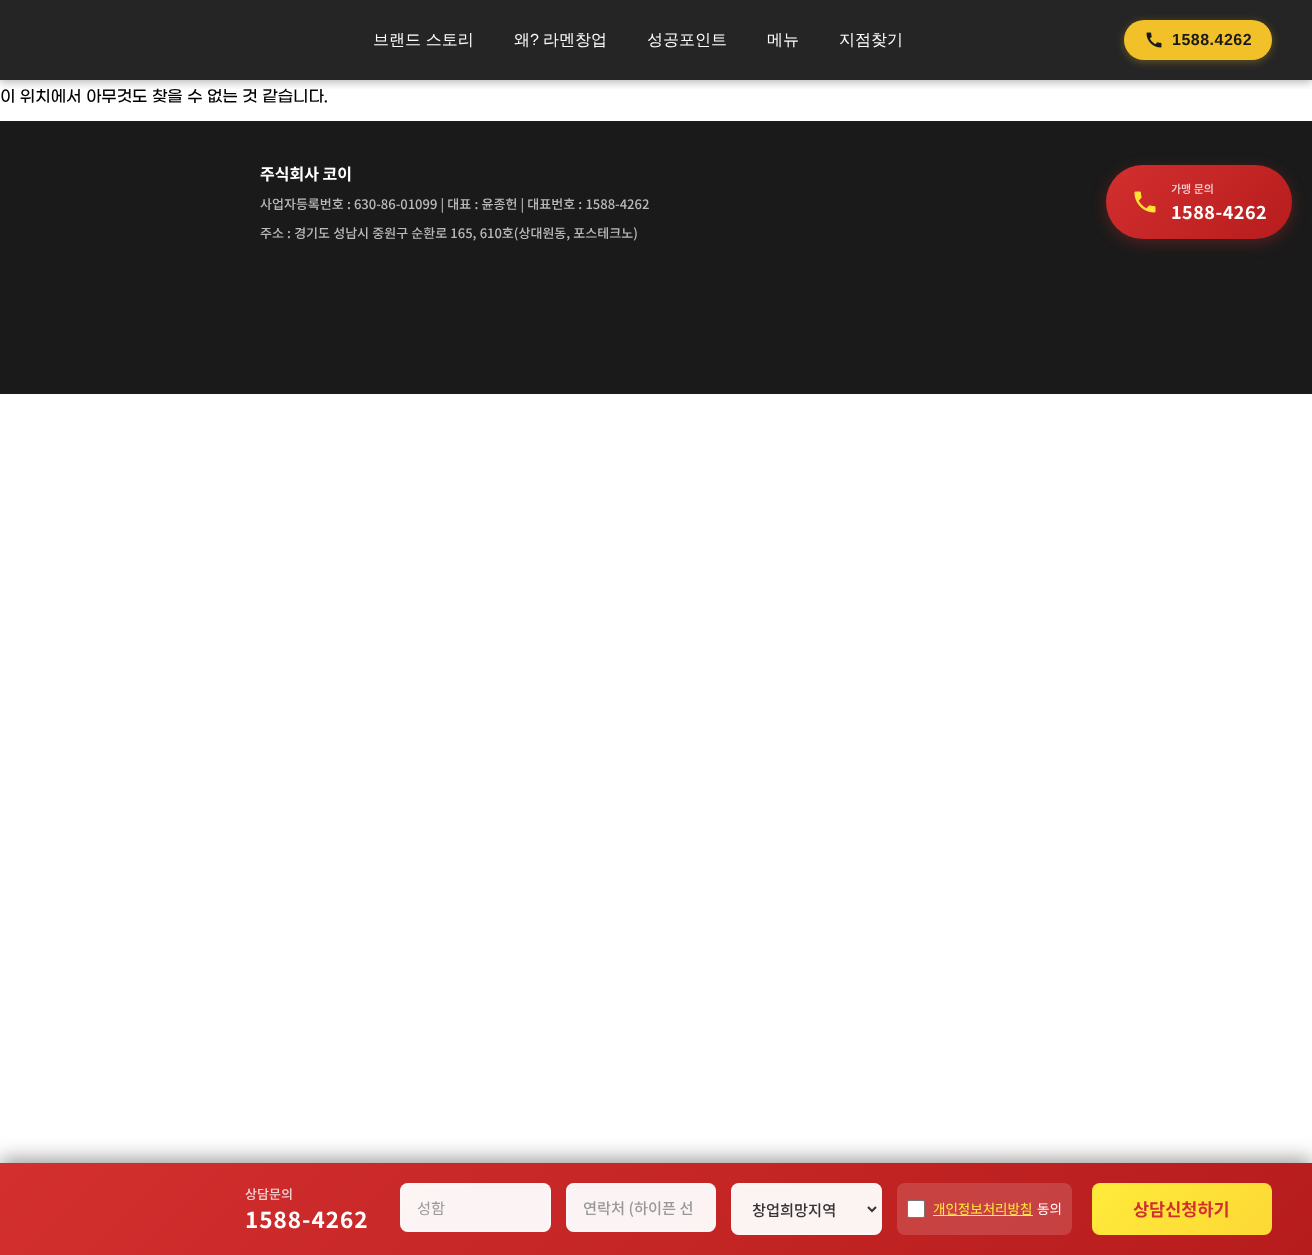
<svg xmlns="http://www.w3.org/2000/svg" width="1312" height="1255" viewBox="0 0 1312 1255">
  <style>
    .t1 { font: 500 16px WenQuanYi Zen Hei; fill: #fff; }
    .t2 { font: 16px Liberation Sans; fill: #fff; }
    .t3 { font: bold 16px Liberation Sans; letter-spacing: 0.5px; fill: #1a1a1a; }
    .t4 { font: 500 16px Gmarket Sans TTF; fill: #000; }
    .t5 { font: bold 16px Noto Sans KR; fill: #fff; }
    .t6 { font: 500 13px Noto Sans KR; fill: #bababa; }
    .t7 { font: 500 11px Noto Sans KR; fill: #f4d4d4; }
    .t8 { font: bold 18px Noto Sans KR; letter-spacing: 0.5px; fill: #fff; }
    .t9 { font: 500 13px Noto Sans KR; fill: #f4d4d4; }
    .t10 { font: bold 22.5px Noto Sans KR; letter-spacing: 1px; fill: #fff; }
    .t11 { font: 15.25px Noto Sans KR; fill: #999; }
    .t12 { font: 500 15.25px Noto Sans KR; fill: #999; }
    .t13 { font: 500 15.25px Noto Sans KR; fill: #333; }
    .t14 { font: 13.5px Noto Sans KR; fill: #ffeb3b; }
    .t15 { font: 13.5px Noto Sans KR; fill: #fff; }
    .t16 { font: bold 17.5px Noto Sans KR; fill: #d32f2f; }
  </style>
  <defs>
    <clipPath id="clip1"><rect x="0" y="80" width="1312" height="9"/></clipPath>
    <linearGradient id="g1" gradientUnits="userSpaceOnUse" x1="1134" y1="137" x2="1264" y2="267"><stop offset="0" stop-color="#d32f2f"/><stop offset="1" stop-color="#b71c1c"/></linearGradient>
    <linearGradient id="g2" gradientUnits="userSpaceOnUse" x1="305" y1="858" x2="1007" y2="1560"><stop offset="0" stop-color="#d32f2f"/><stop offset="1" stop-color="#b71c1c"/></linearGradient>
    <linearGradient id="g3" gradientUnits="userSpaceOnUse" x1="1124" y1="1151" x2="1240" y2="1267"><stop offset="0" stop-color="#ffeb3b"/><stop offset="1" stop-color="#fdd835"/></linearGradient>
  </defs>
  <rect width="100%" height="100%" fill="#fff"/>
  <rect x="0" y="0" width="1312" height="80" fill="#252525"/>
  <g clip-path="url(#clip1)">
    <rect x="0" y="2" width="1312" height="80" fill="#0000004d" filter="blur(5px)"/>
  </g>
  <text x="373" y="45" class="t1">브랜드 스토리</text>
  <text x="514" y="45" class="t1">왜</text>
  <text x="530" y="45" class="t2">?</text>
  <text x="543" y="45" class="t1">라멘창업</text>
  <text x="647" y="45" class="t1">성공포인트</text>
  <text x="767" y="45" class="t1">메뉴</text>
  <text x="839" y="45" class="t1">지점찾기</text>
  <rect x="1124" y="22" width="148" height="40" rx="20" fill="#f2c0294d" filter="blur(4px)"/>
  <rect x="1124" y="20" width="148" height="40" rx="20" fill="#f2c029"/>
  <image x="1146" y="32" width="16" height="16" href="images/1.png"/>
  <text x="1172" y="45" class="t3">1588.4262</text>
  <text x="0" y="101" class="t4">이 위치에서 아무것도 찾을 수 없는 것 같습니다.</text>
  <rect x="0" y="121" width="1312" height="273" fill="#1a1a1a"/>
  <text x="260" y="180" class="t5">주식회사 코이</text>
  <text x="260" y="209" word-spacing="0.25" class="t6">사업자등록번호 : 630-86-01099 | 대표 : 윤종헌 | 대표번호 : 1588-4262</text>
  <text x="260" y="238" word-spacing="0.25" class="t6">주소 : 경기도 성남시 중원구 순환로 165, 610호(상대원동, 포스테크노)</text>
  <rect x="1106" y="169" width="186" height="74" rx="37" fill="#d32f2f4d" filter="blur(7.5px)"/>
  <rect x="1106" y="165" width="186" height="74" rx="37" fill="url(#g1)"/>
  <image x="1134" y="191" width="22" height="22" href="images/2.png"/>
  <text x="1171" y="193" class="t7">가맹 문의</text>
  <text x="1171" y="219" class="t8">1588-4262</text>
  <rect x="0" y="1159" width="1312" height="92" fill="#00000066" filter="blur(10px)"/>
  <rect x="0" y="1163" width="1312" height="92" fill="url(#g2)"/>
  <text x="245" y="1199" class="t9">상담문의</text>
  <text x="245" y="1228" class="t10">1588-4262</text>
  <rect x="400" y="1183" width="151" height="49" rx="8" fill="#fffffff2"/>
  <rect x="401" y="1184" width="149" height="47" rx="7" fill="none" stroke="#ffffff4d" stroke-width="2"/>
  <text x="417" y="1214" class="t11">성함</text>
  <rect x="566" y="1183" width="150" height="49" rx="8" fill="#fffffff2"/>
  <rect x="567" y="1184" width="148" height="47" rx="7" fill="none" stroke="#ffffff4d" stroke-width="2"/>
  <text x="583" y="1214" class="t12">연락처 (하이픈 선</text>
  <rect x="731" y="1183" width="151" height="52" rx="8" fill="#fffffff2"/>
  <rect x="732" y="1184" width="149" height="50" rx="7" fill="none" stroke="#ffffff4d" stroke-width="2"/>
  <path d="M868 1207L872 1211L876 1207" fill="none" stroke="#333" stroke-width="2"/>
  <text x="752" y="1216" class="t13">창업희망지역</text>
  <rect x="897" y="1183" width="175" height="52" rx="8" fill="#ffffff26"/>
  <rect x="907.5" y="1200.5" width="17" height="17" rx="1.5" fill="#fff" stroke="#767676"/>
  <rect x="933" y="1215" width="100" height="1" fill="#ffeb3b"/>
  <text x="933" y="1214" class="t14">개인정보처리방침</text>
  <text x="1037" y="1214" class="t15">동의</text>
  <rect x="1092" y="1183" width="180" height="52" rx="8" fill="url(#g3)"/>
  <text x="1133" y="1216" class="t16">상담신청하기</text>
</svg>
